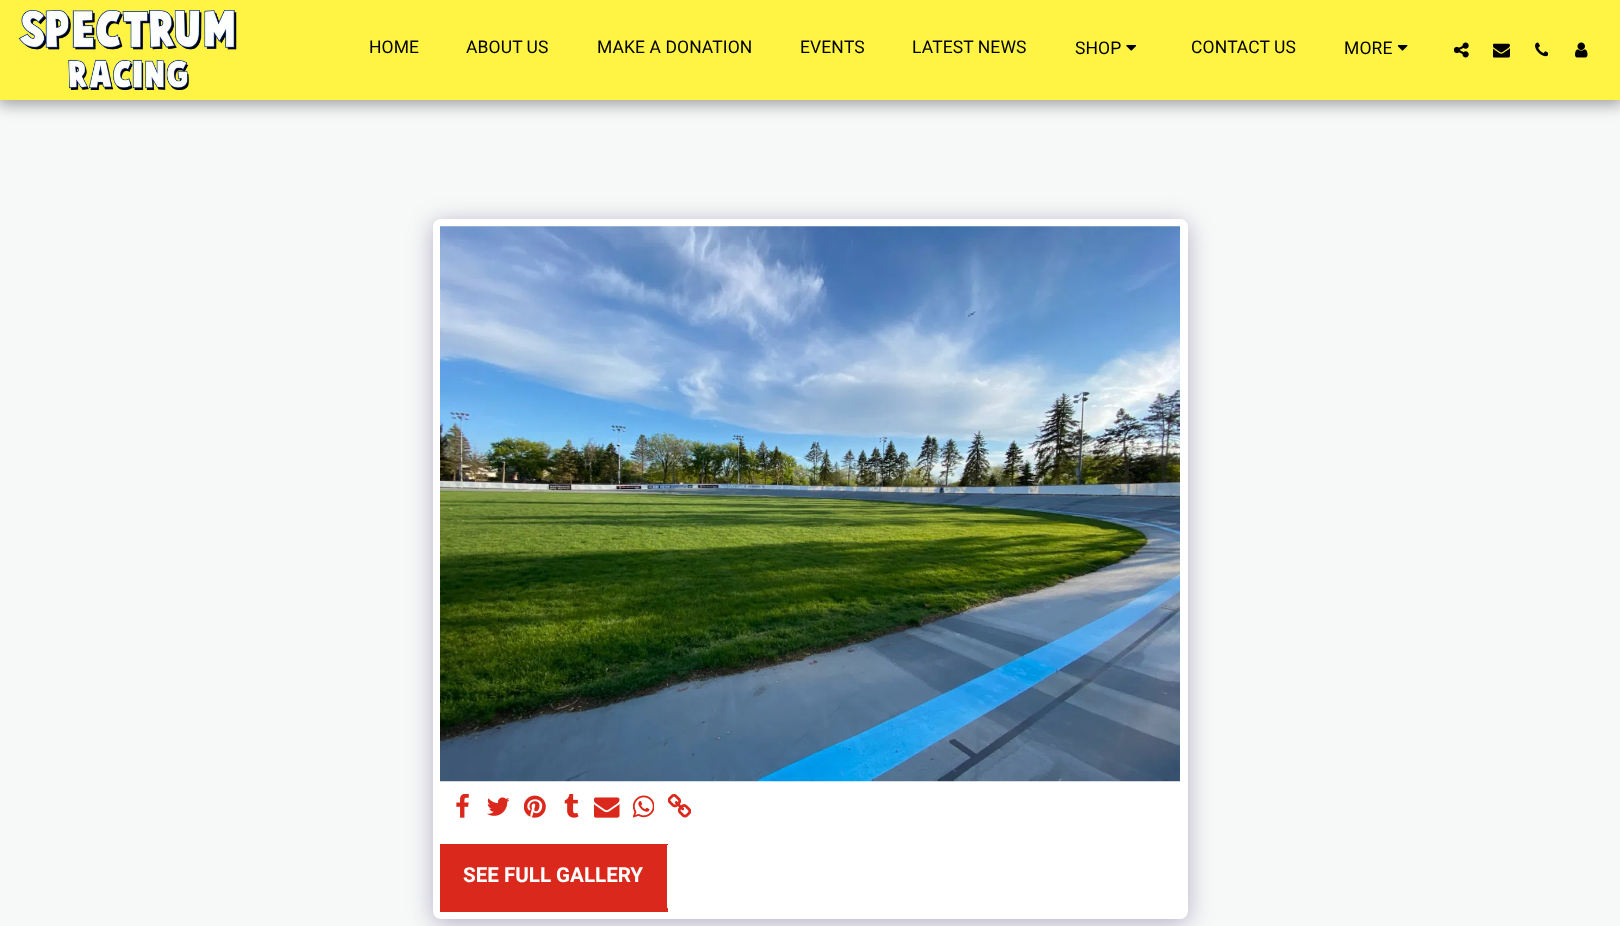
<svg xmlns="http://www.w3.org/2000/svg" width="1620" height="926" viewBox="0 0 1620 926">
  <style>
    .t1 { font: 17.5px Heebo; letter-spacing: 0.1px; fill: #000; }
    .t2 { font: bold 20.6px Heebo; fill: #fff; }
  </style>
  <rect width="100%" height="100%" fill="#f7f9f8"/>
  <rect x="-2" y="0" width="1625" height="105" fill="#00000059" filter="blur(7.5px)"/>
  <rect x="0" y="0" width="1620" height="100" fill="#fff343"/>
  <image x="18" y="10" width="219" height="80" href="images/1.png"/>
  <text x="369" y="53" class="t1">HOME</text>
  <text x="466" y="53" class="t1">ABOUT US</text>
  <text x="597" y="53" class="t1">MAKE A DONATION</text>
  <text x="800" y="53" class="t1">EVENTS</text>
  <text x="912" y="53" class="t1">LATEST NEWS</text>
  <text x="1075" y="54" class="t1">SHOP</text>
  <image x="1126" y="45" width="10" height="6" href="images/2.png"/>
  <text x="1191" y="53" class="t1">CONTACT US</text>
  <text x="1344" y="54" class="t1">MORE</text>
  <image x="1398" y="45" width="10" height="6" href="images/3.png"/>
  <image x="1454" y="42" width="15" height="16" href="images/4.png"/>
  <image x="1493" y="43" width="17" height="15" href="images/5.png"/>
  <image x="1535" y="42" width="13" height="15" href="images/6.png"/>
  <image x="1575" y="42" width="13" height="16" href="images/7.png"/>
  <rect x="433" y="223" width="755" height="700" rx="8" fill="#4d3f7a66" filter="blur(12.5px)"/>
  <rect x="433" y="219" width="755" height="700" rx="8" fill="#fff"/>
  <image x="440" y="226" width="740" height="556" href="images/8.png"/>
  <image x="456" y="794" width="13" height="24" href="images/9.png"/>
  <image x="487" y="797" width="23" height="19" href="images/10.png"/>
  <image x="524" y="795" width="22" height="23" href="images/11.png"/>
  <image x="564" y="794" width="15" height="24" href="images/12.png"/>
  <image x="594" y="797" width="26" height="21" href="images/13.png"/>
  <image x="633" y="795" width="21" height="23" href="images/14.png"/>
  <image x="668" y="794" width="23" height="24" href="images/15.png"/>
  <rect x="441" y="845" width="225" height="63" fill="#da291c"/>
  <rect x="440" y="844" width="228" height="1" fill="#da291c"/>
  <rect x="666" y="844" width="1" height="67" fill="#da291c"/>
  <rect x="440" y="908" width="228" height="4" fill="#da291c"/>
  <rect x="440" y="844" width="1" height="67" fill="#da291c"/>
  <text x="463" y="882" class="t2">SEE FULL GALLERY</text>
</svg>
